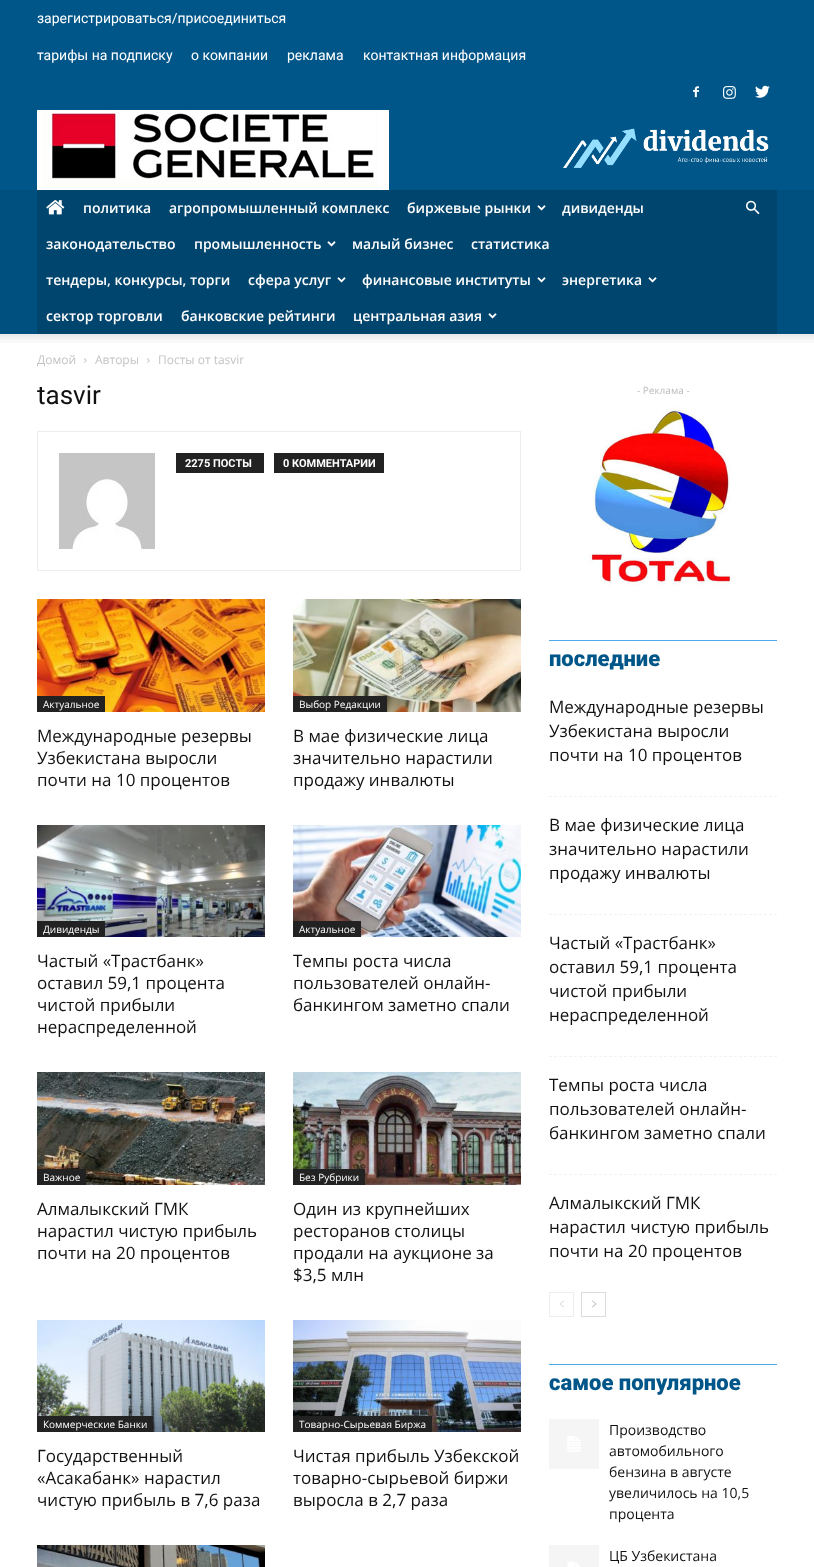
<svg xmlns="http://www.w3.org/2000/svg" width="814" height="1567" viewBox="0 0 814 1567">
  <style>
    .t1 { font: 14px Roboto; fill: #fff; }
    .t2 { font: 600 14px Open Sans; fill: #fff; }
    .t3 { font: 12px Open Sans; fill: #c3c3c3; }
    .t4 { font: 26px Roboto; fill: #111; }
    .t5 { font: bold 11px Roboto; fill: #fff; }
    .t6 { font: 10px Open Sans; fill: #fff; }
    .t7 { font: 17px Open Sans; fill: #111; }
    .t8 { font: 10px Open Sans; fill: #bbb; }
    .t9 { font: 900 22px Roboto; fill: #005689; }
    .t10 { font: 14px Open Sans; fill: #111; }
  </style>
  <rect width="100%" height="100%" fill="#fff"/>
  <rect x="0" y="0" width="814" height="190" fill="#005689"/>
  <image x="37" y="110" width="352" height="80" href="images/1.png"/>
  <image x="563" y="128" width="206" height="40" href="images/2.png"/>
  <text x="37" y="23" class="t1">зарегистрироваться/присоединиться</text>
  <text x="37" y="60" class="t1">тарифы на подписку</text>
  <text x="191" y="60" class="t1">о компании</text>
  <text x="287" y="60" class="t1">реклама</text>
  <text x="363" y="60" class="t1">контактная информация</text>
  <image x="693" y="86" width="6" height="12" href="images/3.png"/>
  <image x="723" y="86" width="13" height="13" href="images/4.png"/>
  <image x="755" y="85" width="15" height="13" href="images/5.png"/>
  <rect x="0" y="190" width="814" height="144" fill="#00507f"/>
  <rect x="37" y="190" width="740" height="144" fill="#00456e"/>
  <image x="46" y="200" width="19" height="15" href="images/6.png"/>
  <text x="83" y="213" class="t2">политика</text>
  <text x="169" y="213" class="t2">агропромышленный комплекс</text>
  <text x="407" y="213" class="t2">биржевые рынки</text>
  <image x="537" y="205" width="9" height="6" href="images/7.png"/>
  <text x="562" y="213" class="t2">дивиденды</text>
  <text x="46" y="249" class="t2">законодательство</text>
  <text x="194" y="249" class="t2">промышленность</text>
  <image x="327" y="241" width="9" height="6" href="images/7.png"/>
  <text x="352" y="249" class="t2">малый бизнес</text>
  <text x="471" y="249" class="t2">статистика</text>
  <text x="46" y="285" class="t2">тендеры, конкурсы, торги</text>
  <text x="248" y="285" class="t2">сфера услуг</text>
  <image x="337" y="277" width="9" height="6" href="images/7.png"/>
  <text x="362" y="285" class="t2">финансовые институты</text>
  <image x="537" y="277" width="9" height="6" href="images/7.png"/>
  <text x="562" y="285" class="t2">энергетика</text>
  <image x="648" y="277" width="9" height="6" href="images/7.png"/>
  <text x="46" y="321" class="t2">сектор торговли</text>
  <text x="181" y="321" class="t2">банковские рейтинги</text>
  <text x="353" y="321" class="t2">центральная азия</text>
  <image x="488" y="313" width="9" height="6" href="images/7.png"/>
  <image x="746" y="200" width="14" height="15" href="images/8.png"/>
  <image x="0" y="334" width="814" height="9" href="images/9.png"/>
  <text x="37" y="364" class="t3">Домой</text>
  <image x="84" y="358" width="3" height="5" href="images/10.png"/>
  <text x="95" y="364" class="t3">Авторы</text>
  <image x="147" y="358" width="3" height="5" href="images/10.png"/>
  <text x="158" y="364" class="t3">Посты от tasvir</text>
  <text x="37" y="404" class="t4">tasvir</text>
  <rect x="37.5" y="431.5" width="483" height="139" fill="none" stroke="#ededed"/>
  <image x="59" y="453" width="96" height="96" href="images/11.png"/>
  <rect x="176" y="453" width="88" height="20" fill="#222"/>
  <text x="185" y="467" class="t5">2275 ПОСТЫ</text>
  <rect x="274" y="453" width="110" height="20" fill="#222"/>
  <text x="283" y="467" class="t5">0 КОММЕНТАРИИ</text>
  <image x="37" y="599" width="228" height="113" href="images/12.png"/>
  <rect x="37" y="696" width="68" height="16" fill="#222"/>
  <text x="43" y="708" class="t6">Актуальное</text>
  <text x="37" y="742" class="t7">Международные резервы</text>
  <text x="37" y="764" class="t7">Узбекистана выросли</text>
  <text x="37" y="786" class="t7">почти на 10 процентов</text>
  <image x="293" y="599" width="228" height="113" href="images/13.png"/>
  <rect x="293" y="696" width="94" height="16" fill="#222"/>
  <text x="299" y="708" class="t6">Выбор Редакции</text>
  <text x="293" y="742" class="t7">В мае физические лица</text>
  <text x="293" y="764" class="t7">значительно нарастили</text>
  <text x="293" y="786" class="t7">продажу инвалюты</text>
  <image x="37" y="825" width="228" height="112" href="images/14.png"/>
  <rect x="37" y="921" width="68" height="16" fill="#222"/>
  <text x="43" y="933" class="t6">Дивиденды</text>
  <text x="37" y="967" class="t7">Частый «Трастбанк»</text>
  <text x="37" y="989" class="t7">оставил 59,1 процента</text>
  <text x="37" y="1011" class="t7">чистой прибыли</text>
  <text x="37" y="1033" class="t7">нераспределенной</text>
  <image x="293" y="825" width="228" height="112" href="images/15.png"/>
  <rect x="293" y="921" width="68" height="16" fill="#222"/>
  <text x="299" y="933" class="t6">Актуальное</text>
  <text x="293" y="967" class="t7">Темпы роста числа</text>
  <text x="293" y="989" class="t7">пользователей онлайн-</text>
  <text x="293" y="1011" class="t7">банкингом заметно спали</text>
  <image x="37" y="1072" width="228" height="113" href="images/16.png"/>
  <rect x="37" y="1169" width="49" height="16" fill="#222"/>
  <text x="43" y="1181" class="t6">Важное</text>
  <text x="37" y="1215" class="t7">Алмалыкский ГМК</text>
  <text x="37" y="1237" class="t7">нарастил чистую прибыль</text>
  <text x="37" y="1259" class="t7">почти на 20 процентов</text>
  <image x="293" y="1072" width="228" height="113" href="images/17.png"/>
  <rect x="293" y="1169" width="72" height="16" fill="#222"/>
  <text x="299" y="1181" class="t6">Без Рубрики</text>
  <text x="293" y="1215" class="t7">Один из крупнейших</text>
  <text x="293" y="1237" class="t7">ресторанов столицы</text>
  <text x="293" y="1259" class="t7">продали на аукционе за</text>
  <text x="293" y="1281" class="t7">$3,5 млн</text>
  <image x="37" y="1320" width="228" height="112" href="images/18.png"/>
  <rect x="37" y="1416" width="116" height="16" fill="#222"/>
  <text x="43" y="1428" class="t6">Коммерческие Банки</text>
  <text x="37" y="1462" class="t7">Государственный</text>
  <text x="37" y="1484" class="t7">«Асакабанк» нарастил</text>
  <text x="37" y="1506" class="t7">чистую прибыль в 7,6 раза</text>
  <image x="293" y="1320" width="228" height="112" href="images/19.png"/>
  <rect x="293" y="1416" width="139" height="16" fill="#222"/>
  <text x="299" y="1428" class="t6">Товарно-Сырьевая Биржа</text>
  <text x="293" y="1462" class="t7">Чистая прибыль Узбекской</text>
  <text x="293" y="1484" class="t7">товарно-сырьевой биржи</text>
  <text x="293" y="1506" class="t7">выросла в 2,7 раза</text>
  <image x="37" y="1545" width="228" height="22" href="images/20.png"/>
  <text x="637" y="394" class="t8">- Реклама -</text>
  <image x="588" y="407" width="147" height="180" href="images/21.png"/>
  <rect x="549" y="640" width="228" height="1" fill="#4facea"/>
  <text x="549" y="666" class="t9">последние</text>
  <path d="M549 796.5H777" fill="none" stroke="#f2f2f2" stroke-dasharray="3 2"/>
  <text x="549" y="713" class="t7">Международные резервы</text>
  <text x="549" y="737" class="t7">Узбекистана выросли</text>
  <text x="549" y="761" class="t7">почти на 10 процентов</text>
  <path d="M549 914.5H777" fill="none" stroke="#f2f2f2" stroke-dasharray="3 2"/>
  <text x="549" y="831" class="t7">В мае физические лица</text>
  <text x="549" y="855" class="t7">значительно нарастили</text>
  <text x="549" y="879" class="t7">продажу инвалюты</text>
  <path d="M549 1056.5H777" fill="none" stroke="#f2f2f2" stroke-dasharray="3 2"/>
  <text x="549" y="949" class="t7">Частый «Трастбанк»</text>
  <text x="549" y="973" class="t7">оставил 59,1 процента</text>
  <text x="549" y="997" class="t7">чистой прибыли</text>
  <text x="549" y="1021" class="t7">нераспределенной</text>
  <path d="M549 1174.5H777" fill="none" stroke="#f2f2f2" stroke-dasharray="3 2"/>
  <text x="549" y="1091" class="t7">Темпы роста числа</text>
  <text x="549" y="1115" class="t7">пользователей онлайн-</text>
  <text x="549" y="1139" class="t7">банкингом заметно спали</text>
  <text x="549" y="1209" class="t7">Алмалыкский ГМК</text>
  <text x="549" y="1233" class="t7">нарастил чистую прибыль</text>
  <text x="549" y="1257" class="t7">почти на 20 процентов</text>
  <rect x="549.5" y="1292.5" width="24" height="24" fill="none" stroke="#eee"/>
  <image x="559" y="1300" width="5" height="8" href="images/22.png"/>
  <rect x="581.5" y="1292.5" width="24" height="24" fill="none" stroke="#dcdcdc"/>
  <image x="592" y="1300" width="5" height="8" href="images/23.png"/>
  <rect x="549" y="1364" width="228" height="1" fill="#4facea"/>
  <text x="549" y="1390" class="t9">самое популярное</text>
  <image x="549" y="1419" width="50" height="50" href="images/24.png"/>
  <text x="609" y="1435" class="t10">Производство</text>
  <text x="609" y="1456" class="t10">автомобильного</text>
  <text x="609" y="1477" class="t10">бензина в августе</text>
  <text x="609" y="1498" class="t10">увеличилось на 10,5</text>
  <text x="609" y="1519" class="t10">процента</text>
  <image x="549" y="1545" width="50" height="22" href="images/25.png"/>
  <text x="609" y="1561" class="t10">ЦБ Узбекистана</text>
</svg>
